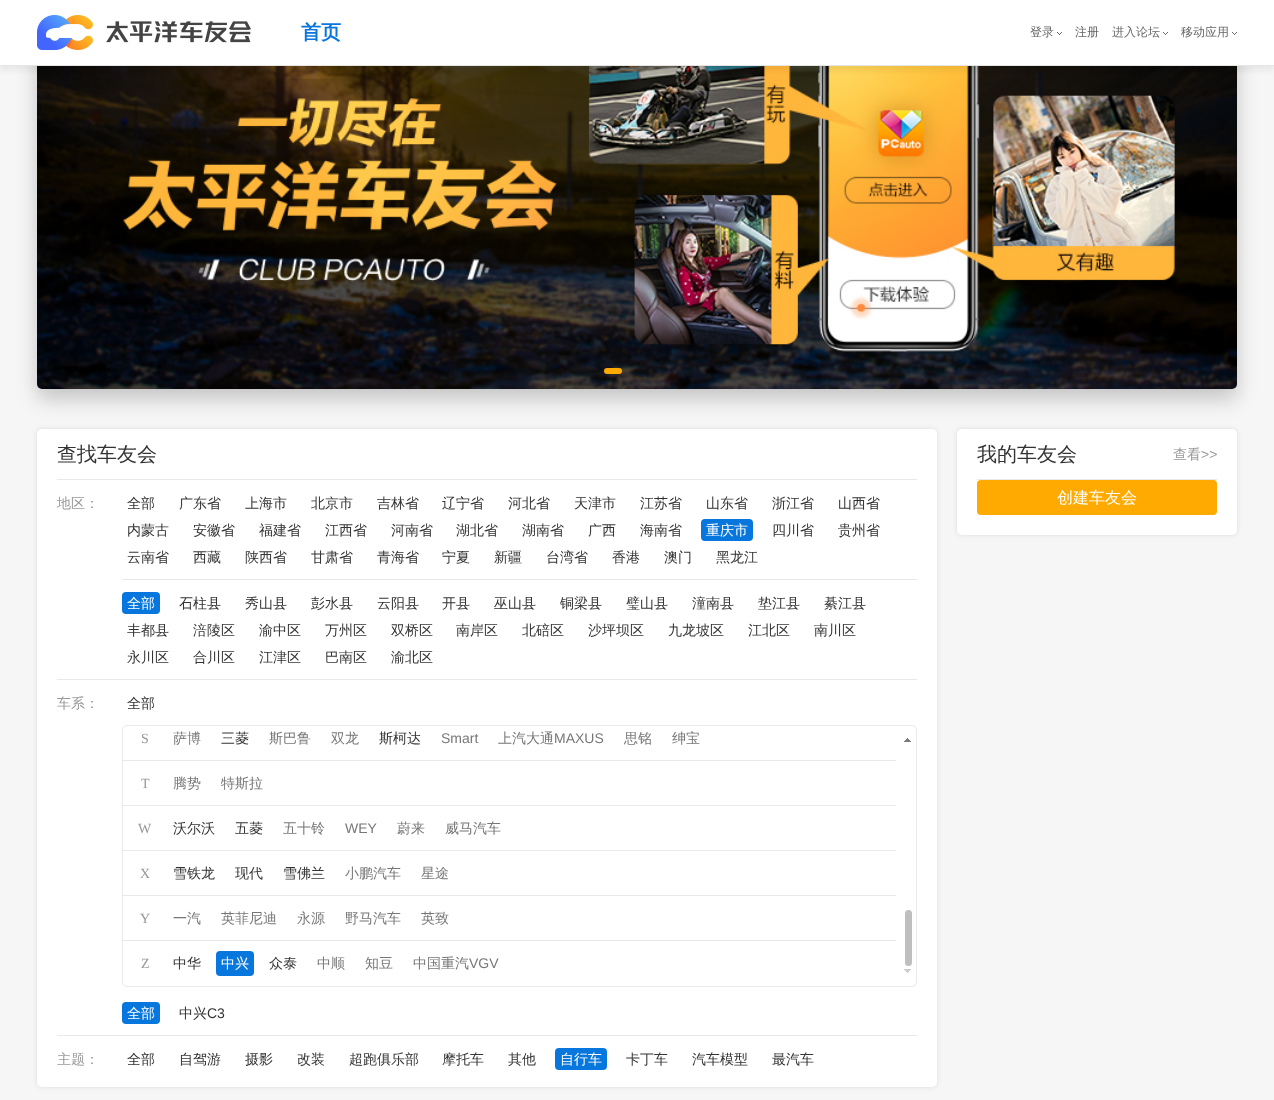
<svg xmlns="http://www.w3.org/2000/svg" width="1274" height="1100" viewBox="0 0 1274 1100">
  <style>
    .t1 { font: bold 20px WenQuanYi Zen Hei; fill: #0777dd; }
    .t2 { font: 500 12px WenQuanYi Zen Hei; fill: #666; }
    .t3 { font: 500 20px WenQuanYi Zen Hei; fill: #333; }
    .t4 { font: 500 14px WenQuanYi Zen Hei; fill: #999; }
    .t5 { font: 500 14px WenQuanYi Zen Hei; fill: #333; }
    .t6 { font: 500 14px WenQuanYi Zen Hei; fill: #fff; }
    .t7 { font: 14px Liberation Serif; fill: #999; }
    .t8 { font: 500 14px WenQuanYi Zen Hei; fill: #777; }
    .t9 { font: 14px Liberation Sans; fill: #777; }
    .t10 { font: 14px Liberation Sans; fill: #333; }
    .t11 { font: 14px Liberation Sans; fill: #999; }
    .t12 { font: 500 16px WenQuanYi Zen Hei; fill: #fff; }
  </style>
  <rect width="100%" height="100%" fill="#f6f6f6"/>
  <rect x="37" y="429" width="900" height="658" rx="5" fill="#0000001a" filter="blur(2.5px)"/>
  <rect x="37" y="429" width="900" height="658" rx="5" fill="#fff"/>
  <rect x="957" y="429" width="280" height="106" rx="5" fill="#0000001a" filter="blur(2.5px)"/>
  <rect x="957" y="429" width="280" height="106" rx="5" fill="#fff"/>
  <rect x="37" y="-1" width="1200" height="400" rx="5" fill="#00000033" filter="blur(10px)"/>
  <image x="37" y="66" width="1200" height="323" href="images/1.png"/>
  <rect x="604" y="368" width="18" height="6" rx="3" fill="#fa0"/>
  <rect x="0" y="5" width="1274" height="66" fill="#0000000d" filter="blur(2.5px)"/>
  <rect x="0" y="0" width="1274" height="65" fill="#fff"/>
  <rect x="0" y="65" width="1274" height="1" fill="#e5e5e5"/>
  <image x="37" y="15" width="214" height="35" href="images/2.png"/>
  <text x="301" y="39" class="t1">首页</text>
  <text x="1030" y="36" class="t2">登录</text>
  <image x="1057" y="32" width="5" height="3" href="images/3.png"/>
  <text x="1075" y="36" class="t2">注册</text>
  <text x="1112" y="36" class="t2">进入论坛</text>
  <image x="1163" y="32" width="5" height="3" href="images/3.png"/>
  <text x="1181" y="36" class="t2">移动应用</text>
  <image x="1232" y="32" width="5" height="3" href="images/3.png"/>
  <text x="57" y="461" class="t3">查找车友会</text>
  <rect x="57" y="479" width="860" height="1" fill="#e9e9e9"/>
  <text x="57" y="508" class="t4">地区：</text>
  <text x="127" y="508" class="t5">全部</text>
  <text x="179" y="508" class="t5">广东省</text>
  <text x="245" y="508" class="t5">上海市</text>
  <text x="311" y="508" class="t5">北京市</text>
  <text x="377" y="508" class="t5">吉林省</text>
  <text x="442" y="508" class="t5">辽宁省</text>
  <text x="508" y="508" class="t5">河北省</text>
  <text x="574" y="508" class="t5">天津市</text>
  <text x="640" y="508" class="t5">江苏省</text>
  <text x="706" y="508" class="t5">山东省</text>
  <text x="772" y="508" class="t5">浙江省</text>
  <text x="838" y="508" class="t5">山西省</text>
  <text x="127" y="535" class="t5">内蒙古</text>
  <text x="193" y="535" class="t5">安徽省</text>
  <text x="259" y="535" class="t5">福建省</text>
  <text x="325" y="535" class="t5">江西省</text>
  <text x="391" y="535" class="t5">河南省</text>
  <text x="456" y="535" class="t5">湖北省</text>
  <text x="522" y="535" class="t5">湖南省</text>
  <text x="588" y="535" class="t5">广西</text>
  <text x="640" y="535" class="t5">海南省</text>
  <rect x="701" y="519" width="52" height="22" rx="4" fill="#0777dd"/>
  <text x="706" y="535" class="t6">重庆市</text>
  <text x="772" y="535" class="t5">四川省</text>
  <text x="838" y="535" class="t5">贵州省</text>
  <text x="127" y="562" class="t5">云南省</text>
  <text x="193" y="562" class="t5">西藏</text>
  <text x="245" y="562" class="t5">陕西省</text>
  <text x="311" y="562" class="t5">甘肃省</text>
  <text x="377" y="562" class="t5">青海省</text>
  <text x="442" y="562" class="t5">宁夏</text>
  <text x="494" y="562" class="t5">新疆</text>
  <text x="546" y="562" class="t5">台湾省</text>
  <text x="612" y="562" class="t5">香港</text>
  <text x="664" y="562" class="t5">澳门</text>
  <text x="716" y="562" class="t5">黑龙江</text>
  <rect x="122" y="579" width="795" height="1" fill="#e9e9e9"/>
  <rect x="122" y="592" width="38" height="22" rx="4" fill="#0777dd"/>
  <text x="127" y="608" class="t6">全部</text>
  <text x="179" y="608" class="t5">石柱县</text>
  <text x="245" y="608" class="t5">秀山县</text>
  <text x="311" y="608" class="t5">彭水县</text>
  <text x="377" y="608" class="t5">云阳县</text>
  <text x="442" y="608" class="t5">开县</text>
  <text x="494" y="608" class="t5">巫山县</text>
  <text x="560" y="608" class="t5">铜梁县</text>
  <text x="626" y="608" class="t5">璧山县</text>
  <text x="692" y="608" class="t5">潼南县</text>
  <text x="758" y="608" class="t5">垫江县</text>
  <text x="824" y="608" class="t5">綦江县</text>
  <text x="127" y="635" class="t5">丰都县</text>
  <text x="193" y="635" class="t5">涪陵区</text>
  <text x="259" y="635" class="t5">渝中区</text>
  <text x="325" y="635" class="t5">万州区</text>
  <text x="391" y="635" class="t5">双桥区</text>
  <text x="456" y="635" class="t5">南岸区</text>
  <text x="522" y="635" class="t5">北碚区</text>
  <text x="588" y="635" class="t5">沙坪坝区</text>
  <text x="668" y="635" class="t5">九龙坡区</text>
  <text x="748" y="635" class="t5">江北区</text>
  <text x="814" y="635" class="t5">南川区</text>
  <text x="127" y="662" class="t5">永川区</text>
  <text x="193" y="662" class="t5">合川区</text>
  <text x="259" y="662" class="t5">江津区</text>
  <text x="325" y="662" class="t5">巴南区</text>
  <text x="391" y="662" class="t5">渝北区</text>
  <rect x="57" y="679" width="860" height="1" fill="#e9e9e9"/>
  <text x="57" y="708" class="t4">车系：</text>
  <text x="127" y="708" class="t5">全部</text>
  <rect x="122.5" y="725.5" width="794" height="261" rx="4.5" fill="none" stroke="#e9e9e9"/>
  <text x="141" y="743" class="t7">S</text>
  <text x="173" y="743" class="t8">萨博</text>
  <text x="221" y="743" class="t5">三菱</text>
  <text x="269" y="743" class="t8">斯巴鲁</text>
  <text x="331" y="743" class="t8">双龙</text>
  <text x="379" y="743" class="t5">斯柯达</text>
  <text x="441" y="743" class="t9">Smart</text>
  <text x="498" y="743" class="t8">上汽大通</text>
  <text x="554" y="743" class="t9">MAXUS</text>
  <text x="624" y="743" class="t8">思铭</text>
  <text x="672" y="743" class="t8">绅宝</text>
  <rect x="123" y="760" width="773" height="1" fill="#e9e9e9"/>
  <text x="141" y="788" class="t7">T</text>
  <text x="173" y="788" class="t8">腾势</text>
  <text x="221" y="788" class="t8">特斯拉</text>
  <rect x="123" y="805" width="773" height="1" fill="#e9e9e9"/>
  <text x="138" y="833" class="t7">W</text>
  <text x="173" y="833" class="t5">沃尔沃</text>
  <text x="235" y="833" class="t5">五菱</text>
  <text x="283" y="833" class="t8">五十铃</text>
  <text x="345" y="833" class="t9">WEY</text>
  <text x="397" y="833" class="t8">蔚来</text>
  <text x="445" y="833" class="t8">威马汽车</text>
  <rect x="123" y="850" width="773" height="1" fill="#e9e9e9"/>
  <text x="140" y="878" class="t7">X</text>
  <text x="173" y="878" class="t5">雪铁龙</text>
  <text x="235" y="878" class="t5">现代</text>
  <text x="283" y="878" class="t5">雪佛兰</text>
  <text x="345" y="878" class="t8">小鹏汽车</text>
  <text x="421" y="878" class="t8">星途</text>
  <rect x="123" y="895" width="773" height="1" fill="#e9e9e9"/>
  <text x="140" y="923" class="t7">Y</text>
  <text x="173" y="923" class="t8">一汽</text>
  <text x="221" y="923" class="t8">英菲尼迪</text>
  <text x="297" y="923" class="t8">永源</text>
  <text x="345" y="923" class="t8">野马汽车</text>
  <text x="421" y="923" class="t8">英致</text>
  <rect x="123" y="940" width="773" height="1" fill="#e9e9e9"/>
  <text x="141" y="968" class="t7">Z</text>
  <text x="173" y="968" class="t5">中华</text>
  <rect x="216" y="951" width="38" height="25" rx="4" fill="#0777dd"/>
  <text x="221" y="968" class="t6">中兴</text>
  <text x="269" y="968" class="t5">众泰</text>
  <text x="317" y="968" class="t8">中顺</text>
  <text x="365" y="968" class="t8">知豆</text>
  <text x="413" y="968" class="t8">中国重汽</text>
  <text x="469" y="968" class="t9">VGV</text>
  <image x="904" y="738" width="7" height="4" href="images/4.png"/>
  <rect x="905" y="910" width="7" height="56" rx="3.5" fill="#bfbfbf"/>
  <image x="904" y="969" width="7" height="4" href="images/5.png"/>
  <rect x="122" y="1002" width="38" height="22" rx="4" fill="#0777dd"/>
  <text x="127" y="1018" class="t6">全部</text>
  <text x="179" y="1018" class="t5">中兴</text>
  <text x="207" y="1018" class="t10">C3</text>
  <rect x="57" y="1035" width="860" height="1" fill="#e9e9e9"/>
  <text x="57" y="1064" class="t4">主题：</text>
  <text x="127" y="1064" class="t5">全部</text>
  <text x="179" y="1064" class="t5">自驾游</text>
  <text x="245" y="1064" class="t5">摄影</text>
  <text x="297" y="1064" class="t5">改装</text>
  <text x="349" y="1064" class="t5">超跑俱乐部</text>
  <text x="442" y="1064" class="t5">摩托车</text>
  <text x="508" y="1064" class="t5">其他</text>
  <rect x="555" y="1048" width="52" height="22" rx="4" fill="#0777dd"/>
  <text x="560" y="1064" class="t6">自行车</text>
  <text x="626" y="1064" class="t5">卡丁车</text>
  <text x="692" y="1064" class="t5">汽车模型</text>
  <text x="772" y="1064" class="t5">最汽车</text>
  <rect x="977" y="479" width="240" height="1" fill="#e9e9e9"/>
  <text x="977" y="461" class="t3">我的车友会</text>
  <text x="1173" y="459" class="t4">查看</text>
  <text x="1201" y="459" class="t11">&gt;&gt;</text>
  <rect x="977" y="480" width="240" height="35" rx="4" fill="#fa0"/>
  <text x="1057" y="503" class="t12">创建车友会</text>
</svg>
